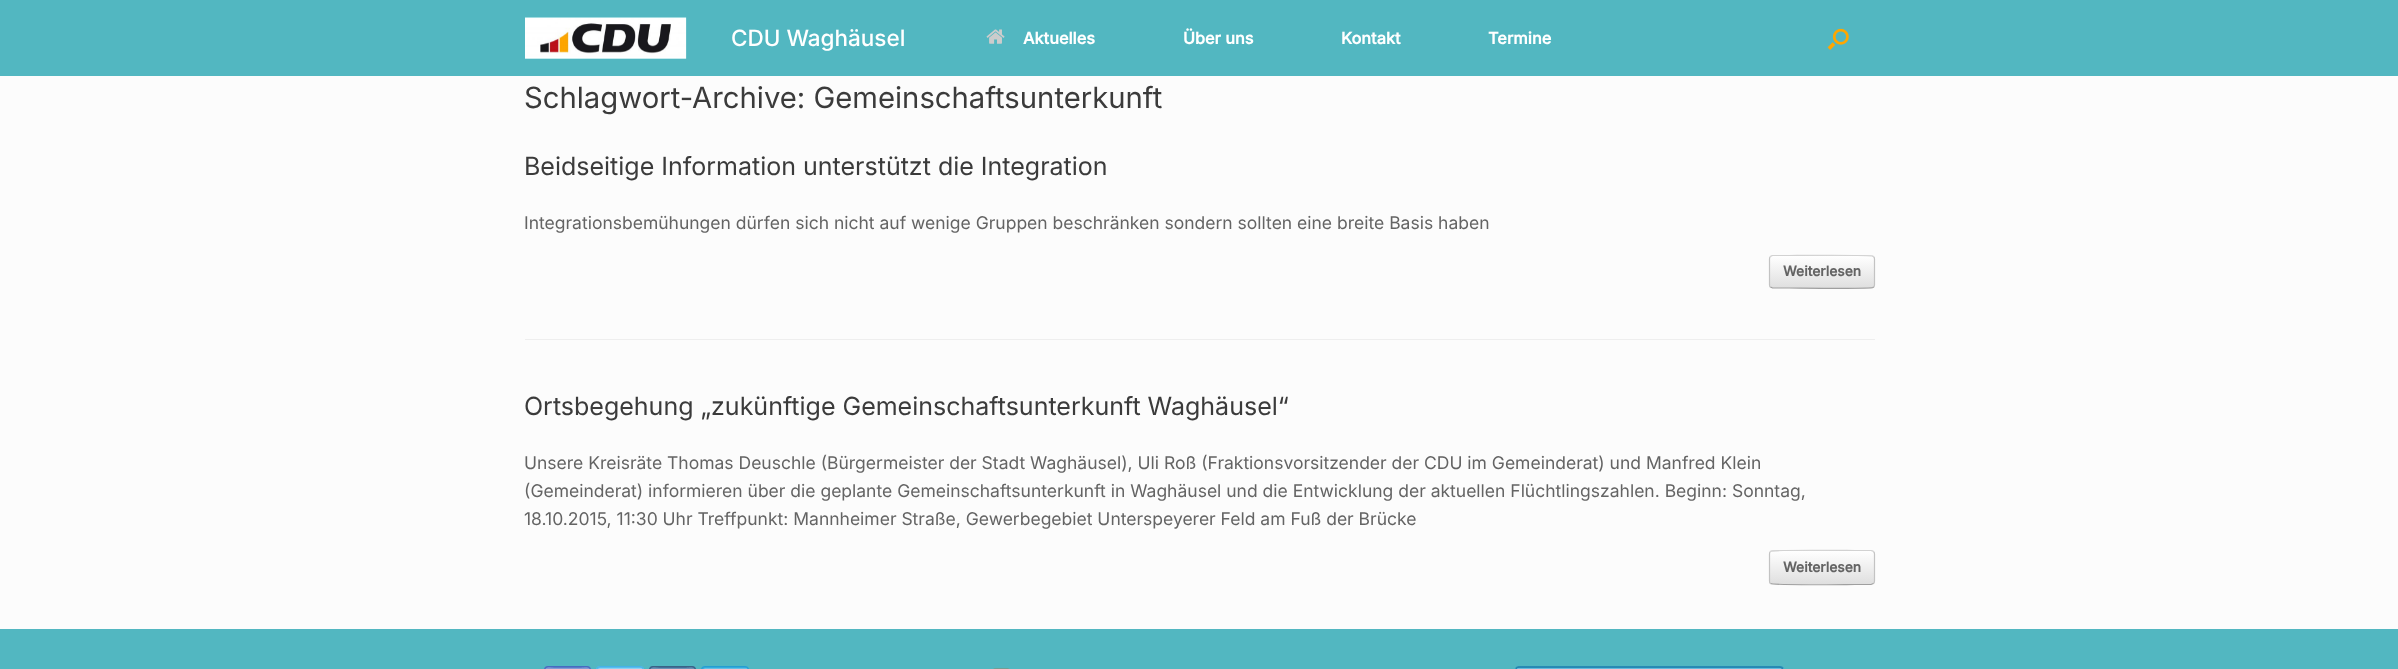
<svg xmlns="http://www.w3.org/2000/svg" width="2398" height="669" viewBox="0 0 2398 669">
  <style>
    .t1 { font: 500 22.5px Inter; fill: #fff; }
    .t2 { font: bold 16.25px Inter; fill: #fff; }
    .t3 { font: 29.25px Inter; fill: #3b3b3b; }
    .t4 { font: 25px Inter; fill: #3b3b3b; }
    .t5 { font: 17.5px Inter; fill: #646464; }
    .t6 { font: bold 13.75px Inter; fill: #646464; }
  </style>
  <defs>
    <clipPath id="clip1"><rect x="1769" y="255" width="106" height="34" rx="4"/></clipPath>
    <linearGradient id="g1" gradientUnits="userSpaceOnUse" x1="1770" y1="256" x2="1770" y2="225"><stop offset="0" stop-color="#dfdfdf"/><stop offset="1" stop-color="#fff"/></linearGradient>
    <linearGradient id="g2" gradientUnits="userSpaceOnUse" x1="1770" y1="288" x2="1770" y2="256"><stop offset="0" stop-color="#dfdfdf"/><stop offset="1" stop-color="#fff"/></linearGradient>
    <clipPath id="clip2"><rect x="1769" y="550" width="106" height="35" rx="4"/></clipPath>
    <linearGradient id="g3" gradientUnits="userSpaceOnUse" x1="1770" y1="551" x2="1770" y2="519"><stop offset="0" stop-color="#dfdfdf"/><stop offset="1" stop-color="#fff"/></linearGradient>
    <linearGradient id="g4" gradientUnits="userSpaceOnUse" x1="1770" y1="584" x2="1770" y2="551"><stop offset="0" stop-color="#dfdfdf"/><stop offset="1" stop-color="#fff"/></linearGradient>
    <linearGradient id="g5" gradientUnits="userSpaceOnUse" x1="1770" y1="616" x2="1770" y2="584"><stop offset="0" stop-color="#dfdfdf"/><stop offset="1" stop-color="#fff"/></linearGradient>
    <clipPath id="clip3"><rect x="544" y="666" width="47" height="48" rx="4"/></clipPath>
    <linearGradient id="g6" gradientUnits="userSpaceOnUse" x1="545" y1="668" x2="545" y2="623"><stop offset="0" stop-color="#597ac7"/><stop offset="1" stop-color="#6483cb"/></linearGradient>
    <linearGradient id="g7" gradientUnits="userSpaceOnUse" x1="545" y1="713" x2="545" y2="668"><stop offset="0" stop-color="#597ac7"/><stop offset="1" stop-color="#6483cb"/></linearGradient>
    <clipPath id="clip4"><rect x="596" y="666" width="48" height="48" rx="4"/></clipPath>
    <linearGradient id="g8" gradientUnits="userSpaceOnUse" x1="598" y1="668" x2="598" y2="623"><stop offset="0" stop-color="#5bbcec"/><stop offset="1" stop-color="#69c2ee"/></linearGradient>
    <linearGradient id="g9" gradientUnits="userSpaceOnUse" x1="598" y1="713" x2="598" y2="668"><stop offset="0" stop-color="#5bbcec"/><stop offset="1" stop-color="#69c2ee"/></linearGradient>
    <clipPath id="clip5"><rect x="649" y="666" width="47" height="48" rx="4"/></clipPath>
    <linearGradient id="g10" gradientUnits="userSpaceOnUse" x1="650" y1="668" x2="650" y2="623"><stop offset="0" stop-color="#426f98"/><stop offset="1" stop-color="#4777a3"/></linearGradient>
    <linearGradient id="g11" gradientUnits="userSpaceOnUse" x1="650" y1="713" x2="650" y2="668"><stop offset="0" stop-color="#426f98"/><stop offset="1" stop-color="#4777a3"/></linearGradient>
    <clipPath id="clip6"><rect x="701" y="666" width="48" height="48" rx="4"/></clipPath>
    <linearGradient id="g12" gradientUnits="userSpaceOnUse" x1="703" y1="668" x2="703" y2="623"><stop offset="0" stop-color="#34aadc"/><stop offset="1" stop-color="#41afde"/></linearGradient>
    <linearGradient id="g13" gradientUnits="userSpaceOnUse" x1="703" y1="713" x2="703" y2="668"><stop offset="0" stop-color="#34aadc"/><stop offset="1" stop-color="#41afde"/></linearGradient>
    <clipPath id="clip7"><rect x="1515" y="666" width="269" height="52" rx="4"/></clipPath>
    <linearGradient id="g14" gradientUnits="userSpaceOnUse" x1="1516" y1="668" x2="1516" y2="619"><stop offset="0" stop-color="#298fba"/><stop offset="1" stop-color="#41a9d5"/></linearGradient>
    <linearGradient id="g15" gradientUnits="userSpaceOnUse" x1="1516" y1="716" x2="1516" y2="668"><stop offset="0" stop-color="#298fba"/><stop offset="1" stop-color="#41a9d5"/></linearGradient>
  </defs>
  <rect width="100%" height="100%" fill="#52b7c1"/>
  <image x="525" y="17" width="162" height="42" href="images/1.png"/>
  <text x="731" y="46" class="t1">CDU Waghäusel</text>
  <image x="986" y="29" width="19" height="15" href="images/2.png"/>
  <text x="1023" y="44" class="t2">Aktuelles</text>
  <text x="1183" y="44" class="t2">Über uns</text>
  <text x="1341" y="44" class="t2">Kontakt</text>
  <text x="1488" y="44" class="t2">Termine</text>
  <image x="1827" y="28" width="22" height="22" href="images/3.png"/>
  <rect x="0" y="76" width="2398" height="553" fill="#fcfcfc"/>
  <text x="524" y="108" class="t3">Schlagwort-Archive: Gemeinschaftsunterkunft</text>
  <rect x="525" y="339" width="1350" height="1" fill="#eee"/>
  <text x="524" y="175" class="t4">Beidseitige Information unterstützt die Integration</text>
  <text x="524" y="229" class="t5">Integrationsbemühungen dürfen sich nicht auf wenige Gruppen beschränken sondern sollten eine breite Basis haben</text>
  <g clip-path="url(#clip1)">
    <rect x="1769" y="255" width="106" height="1" fill="url(#g1)"/>
    <rect x="1769" y="256" width="106" height="32" fill="url(#g2)"/>
  </g>
  <path d="M1770.5 256.5L1772.5 255.5H1789C1798 255.5 1871 254.5 1873 256.5H1873.5" fill="none" stroke="#d2d2d2" stroke-width="1.2"/>
  <path d="M1873.5 256.5C1874 257 1874.5 258 1874.5 259V285C1874.5 286 1874 286.5 1873.5 287" fill="none" stroke="#c3c3c3" stroke-width="1.2"/>
  <path d="M1873.5 287L1873 287.5C1871 289 1798 288 1789 288H1772.5L1770.5 287" fill="none" stroke="#9f9f9f" stroke-width="1.2"/>
  <path d="M1770.5 287C1769.5 286.5 1769.5 286 1769.5 285V259C1769.5 258 1769.5 257 1770.5 256.5" fill="none" stroke="#c3c3c3" stroke-width="1.2"/>
  <text x="1783" y="276" class="t6">Weiterlesen</text>
  <text x="524" y="415" class="t4">Ortsbegehung „zukünftige Gemeinschaftsunterkunft Waghäusel“</text>
  <text x="524" y="469" class="t5">Unsere Kreisräte Thomas Deuschle (Bürgermeister der Stadt Waghäusel), Uli Roß (Fraktionsvorsitzender der CDU im Gemeinderat) und Manfred Klein</text>
  <text x="524" y="497" class="t5">(Gemeinderat) informieren über die geplante Gemeinschaftsunterkunft in Waghäusel und die Entwicklung der aktuellen Flüchtlingszahlen. Beginn: Sonntag,</text>
  <text x="524" y="525" class="t5">18.10.2015, 11:30 Uhr Treffpunkt: Mannheimer Straße, Gewerbegebiet Unterspeyerer Feld am Fuß der Brücke</text>
  <g clip-path="url(#clip2)">
    <rect x="1769" y="550" width="106" height="1" fill="url(#g3)"/>
    <rect x="1769" y="551" width="106" height="33" fill="url(#g4)"/>
    <rect x="1769" y="584" width="106" height="1" fill="url(#g5)"/>
  </g>
  <path d="M1770.5 551.5C1772.5 549.5 1846 550.5 1855 550.5H1871L1873.5 551.5" fill="none" stroke="#d2d2d2" stroke-width="1.2"/>
  <path d="M1873.5 551.5C1874 552 1874.5 553 1874.5 554V581C1874.5 582 1874 583 1873.5 583.5" fill="none" stroke="#c3c3c3" stroke-width="1.2"/>
  <path d="M1873.5 583.5L1871 584.5H1855C1846 584.5 1772.5 585.5 1770.5 583.5" fill="none" stroke="#9f9f9f" stroke-width="1.2"/>
  <path d="M1770.5 583.5C1769.5 583 1769.5 582 1769.5 581V554C1769.5 553 1769.5 552 1770.5 551.5" fill="none" stroke="#c3c3c3" stroke-width="1.2"/>
  <text x="1783" y="572" class="t6">Weiterlesen</text>
  <g clip-path="url(#clip3)">
    <rect x="544" y="666" width="47" height="2" fill="url(#g6)"/>
  </g>
  <rect x="544" y="668" width="47" height="1" fill="url(#g7)"/>
  <path d="M548 669H588C589 669 590 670 590 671C590 666 584 668 581 668H554C551 668 545 666 545 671C545 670 546 669 548 669Z" fill="#839cd5"/>
  <rect x="544.5" y="666.5" width="46" height="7" rx="3.5" fill="none" stroke="#466bc1"/>
  <g clip-path="url(#clip4)">
    <rect x="596" y="666" width="48" height="2" fill="url(#g8)"/>
  </g>
  <rect x="596" y="668" width="48" height="1" fill="url(#g9)"/>
  <path d="M600 669H633C646 669 642 669 642 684V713C642 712 643 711 643 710V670C643 669 642 668 640 668H600C599 668 598 669 598 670V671C598 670 599 669 600 669Z" fill="#8fd1f2"/>
  <rect x="596.5" y="666.5" width="47" height="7" rx="3.5" fill="none" stroke="#44b3e9"/>
  <g clip-path="url(#clip5)">
    <rect x="649" y="666" width="47" height="2" fill="url(#g10)"/>
  </g>
  <rect x="649" y="668" width="47" height="1" fill="url(#g11)"/>
  <path d="M652 669H692C694 669 695 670 695 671C695 666 689 668 686 668H659C656 668 650 666 650 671C650 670 651 669 652 669Z" fill="#6c92b5"/>
  <rect x="649.5" y="666.5" width="46" height="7" rx="3.5" fill="none" stroke="#3a6286"/>
  <g clip-path="url(#clip6)">
    <rect x="701" y="666" width="48" height="2" fill="url(#g12)"/>
  </g>
  <rect x="701" y="668" width="48" height="1" fill="url(#g13)"/>
  <path d="M705 669H745C746 669 748 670 748 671V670C748 669 747 668 746 668H706C704 668 704 669 703 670Z" fill="#67bfe5"/>
  <rect x="701.5" y="666.5" width="47" height="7" rx="3.5" fill="none" stroke="#249ed2"/>
  <image x="993" y="668" width="17" height="1" href="images/4.png"/>
  <g clip-path="url(#clip7)">
    <rect x="1515" y="666" width="269" height="2" fill="url(#g14)"/>
  </g>
  <rect x="1515" y="668" width="269" height="1" fill="url(#g15)"/>
  <path d="M1519 669H1780C1781 669 1782 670 1782 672V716C1783 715 1783 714 1783 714V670C1783 669 1782 668 1780 668H1518C1517 668 1516 669 1516 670V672C1516 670 1518 669 1519 669Z" fill="#67badd"/>
  <path d="M1516.5 668L1519 667H1779.5L1782 668" fill="none" stroke="#2685ad" stroke-width="1.2"/>
  <path d="M1782 668L1783 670.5V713.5L1782 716" fill="none" stroke="#247fa5" stroke-width="1.2"/>
  <path d="M1516.5 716L1515.5 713.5V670.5L1516.5 668" fill="none" stroke="#247fa5" stroke-width="1.2"/>
</svg>
